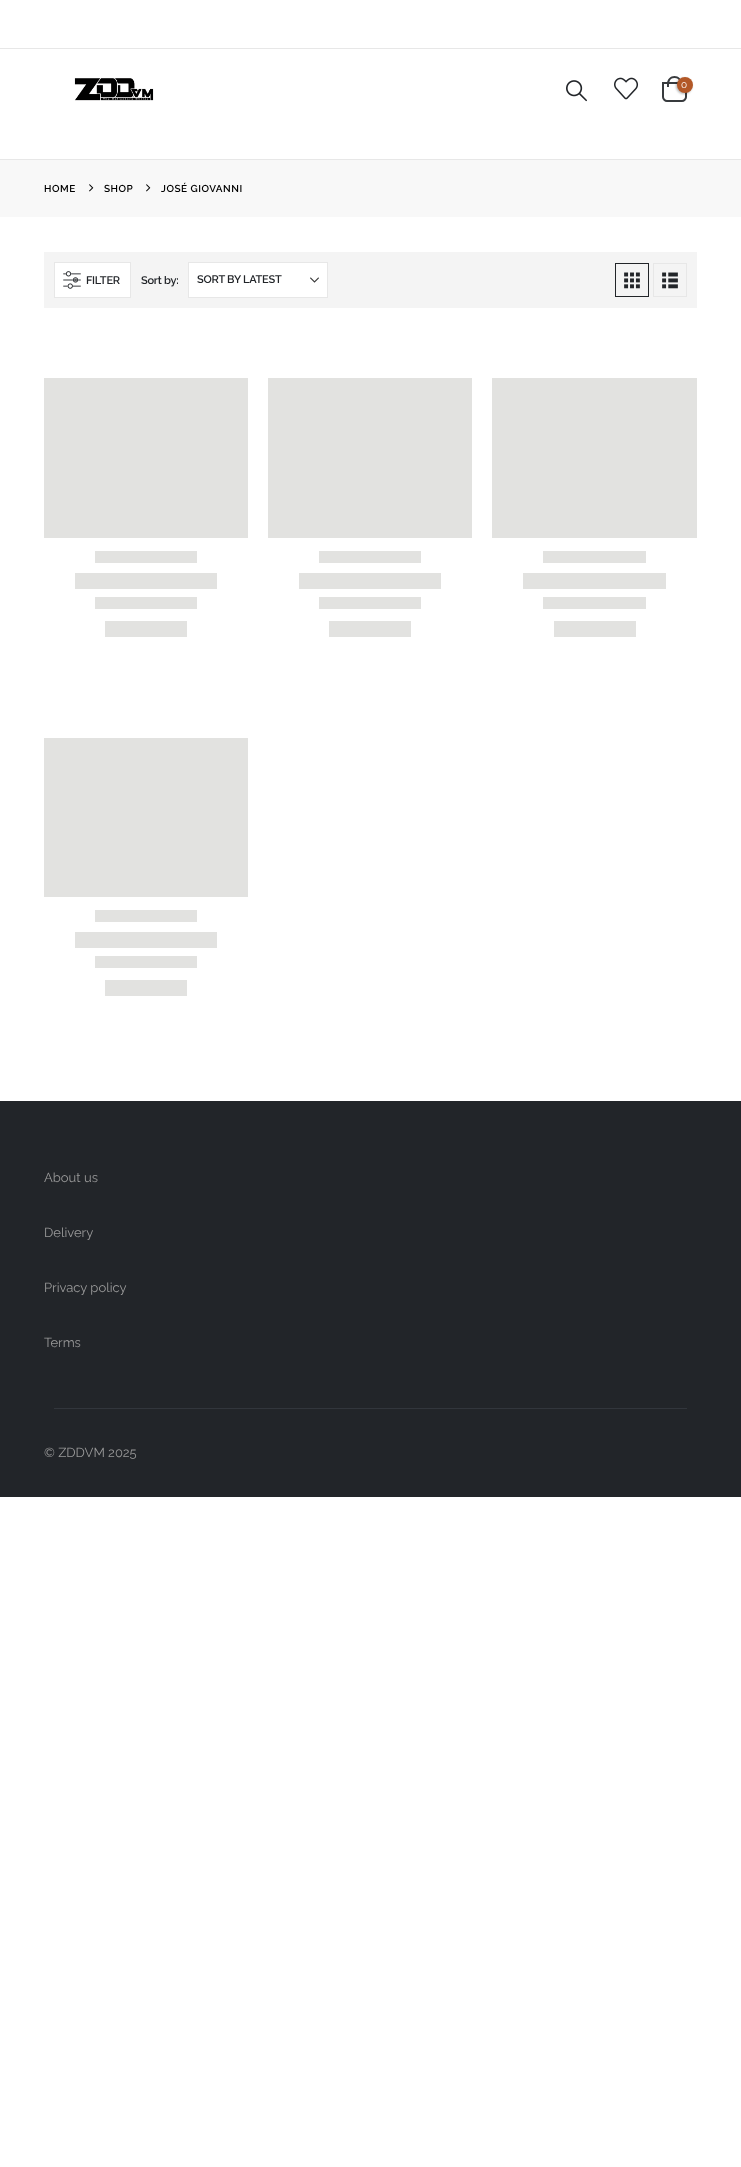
<svg xmlns="http://www.w3.org/2000/svg" width="741" height="2167" viewBox="0 0 741 2167">
  <style>
    .t1 { font: 10px Raleway; fill: #fff; }
    .t2 { font: 600 10px Raleway; letter-spacing: 0.5px; fill: #000; }
    .t3 { font: 600 11px Raleway; letter-spacing: -0.25px; fill: #222529; }
    .t4 { font: 13px Raleway; fill: #999; }
  </style>
  <rect width="100%" height="100%" fill="#fff"/>
  <rect x="0" y="48" width="741" height="1" fill="#e7e7e7"/>
  <image x="74" y="78" width="80" height="23" href="images/1.png"/>
  <image x="566" y="80" width="21" height="22" href="images/2.png"/>
  <image x="614" y="77" width="25" height="23" href="images/3.png"/>
  <path d="M663 83H686V97C686 99 684 101 682 101H667C665 101 663 99 663 97Z" fill="none" stroke="#383b3e" stroke-width="2"/>
  <path d="M674.5 76C678.5 76 682 79.5 682 83.5V87H667V83.5C667 79.5 670.5 76 674.5 76ZM674.5 78C680 78 680 83 680 87H669C669 83 669 78 674.5 78Z" fill="#383b3e" fill-rule="evenodd"/>
  <rect x="676" y="78" width="16" height="16" rx="8" fill="#0000004d" filter="blur(1px)"/>
  <circle cx="685" cy="85" r="8" fill="#b35827"/>
  <text x="681" y="88" class="t1">0</text>
  <rect x="0" y="160" width="741" height="57" fill="#f8f8f8"/>
  <rect x="0" y="159" width="741" height="1" fill="#e7e7e7"/>
  <text x="44" y="192" class="t2">HOME</text>
  <image x="89" y="184" width="5" height="8" href="images/4.png"/>
  <text x="104" y="192" class="t2">SHOP</text>
  <image x="146" y="184" width="5" height="8" href="images/4.png"/>
  <text x="161" y="192" class="t2">JOSÉ GIOVANNI</text>
  <rect x="44" y="252" width="653" height="56" fill="#f4f4f4"/>
  <rect x="54.5" y="262.5" width="76" height="35" fill="#fff" stroke="#e7e7e7"/>
  <image x="63" y="271" width="18" height="18" href="images/5.png"/>
  <text x="86" y="284" class="t3">FILTER</text>
  <text x="141" y="284" class="t3">Sort by:</text>
  <rect x="189" y="263" width="138" height="34" fill="#fff"/>
  <image x="310" y="277" width="9" height="6" href="images/6.png"/>
  <rect x="188.5" y="262.5" width="139" height="35" fill="none" stroke="#e7e7e7"/>
  <text x="197" y="283" class="t3">SORT BY LATEST</text>
  <rect x="615.5" y="263.5" width="33" height="33" fill="none" stroke="#222529"/>
  <image x="624" y="272" width="16" height="17" href="images/7.png"/>
  <rect x="653.5" y="263.5" width="33" height="33" fill="none" stroke="#e7e7e7"/>
  <image x="662" y="272" width="16" height="17" href="images/8.png"/>
  <rect x="105" y="621" width="82" height="16" fill="#e2e2e0"/>
  <rect x="95" y="597" width="102" height="12" fill="#e2e2e0"/>
  <rect x="75" y="573" width="142" height="16" fill="#e2e2e0"/>
  <rect x="95" y="551" width="102" height="12" fill="#e2e2e0"/>
  <rect x="44" y="378" width="204" height="160" fill="#e2e2e0"/>
  <rect x="329" y="621" width="82" height="16" fill="#e2e2e0"/>
  <rect x="319" y="597" width="102" height="12" fill="#e2e2e0"/>
  <rect x="299" y="573" width="142" height="16" fill="#e2e2e0"/>
  <rect x="319" y="551" width="102" height="12" fill="#e2e2e0"/>
  <rect x="268" y="378" width="204" height="160" fill="#e2e2e0"/>
  <rect x="554" y="621" width="82" height="16" fill="#e2e2e0"/>
  <rect x="543" y="597" width="103" height="12" fill="#e2e2e0"/>
  <rect x="523" y="573" width="143" height="16" fill="#e2e2e0"/>
  <rect x="543" y="551" width="103" height="12" fill="#e2e2e0"/>
  <rect x="492" y="378" width="205" height="160" fill="#e2e2e0"/>
  <rect x="105" y="980" width="82" height="16" fill="#e2e2e0"/>
  <rect x="95" y="956" width="102" height="12" fill="#e2e2e0"/>
  <rect x="75" y="932" width="142" height="16" fill="#e2e2e0"/>
  <rect x="95" y="910" width="102" height="12" fill="#e2e2e0"/>
  <rect x="44" y="738" width="204" height="159" fill="#e2e2e0"/>
  <rect x="0" y="1101" width="741" height="396" fill="#222529"/>
  <text x="44" y="1182" class="t4">About us</text>
  <text x="44" y="1237" class="t4">Delivery</text>
  <text x="44" y="1292" class="t4">Privacy policy</text>
  <text x="44" y="1347" class="t4">Terms</text>
  <rect x="54" y="1408" width="633" height="1" fill="#32363c"/>
  <text x="44" y="1457" class="t4">© ZDDVM 2025</text>
</svg>
